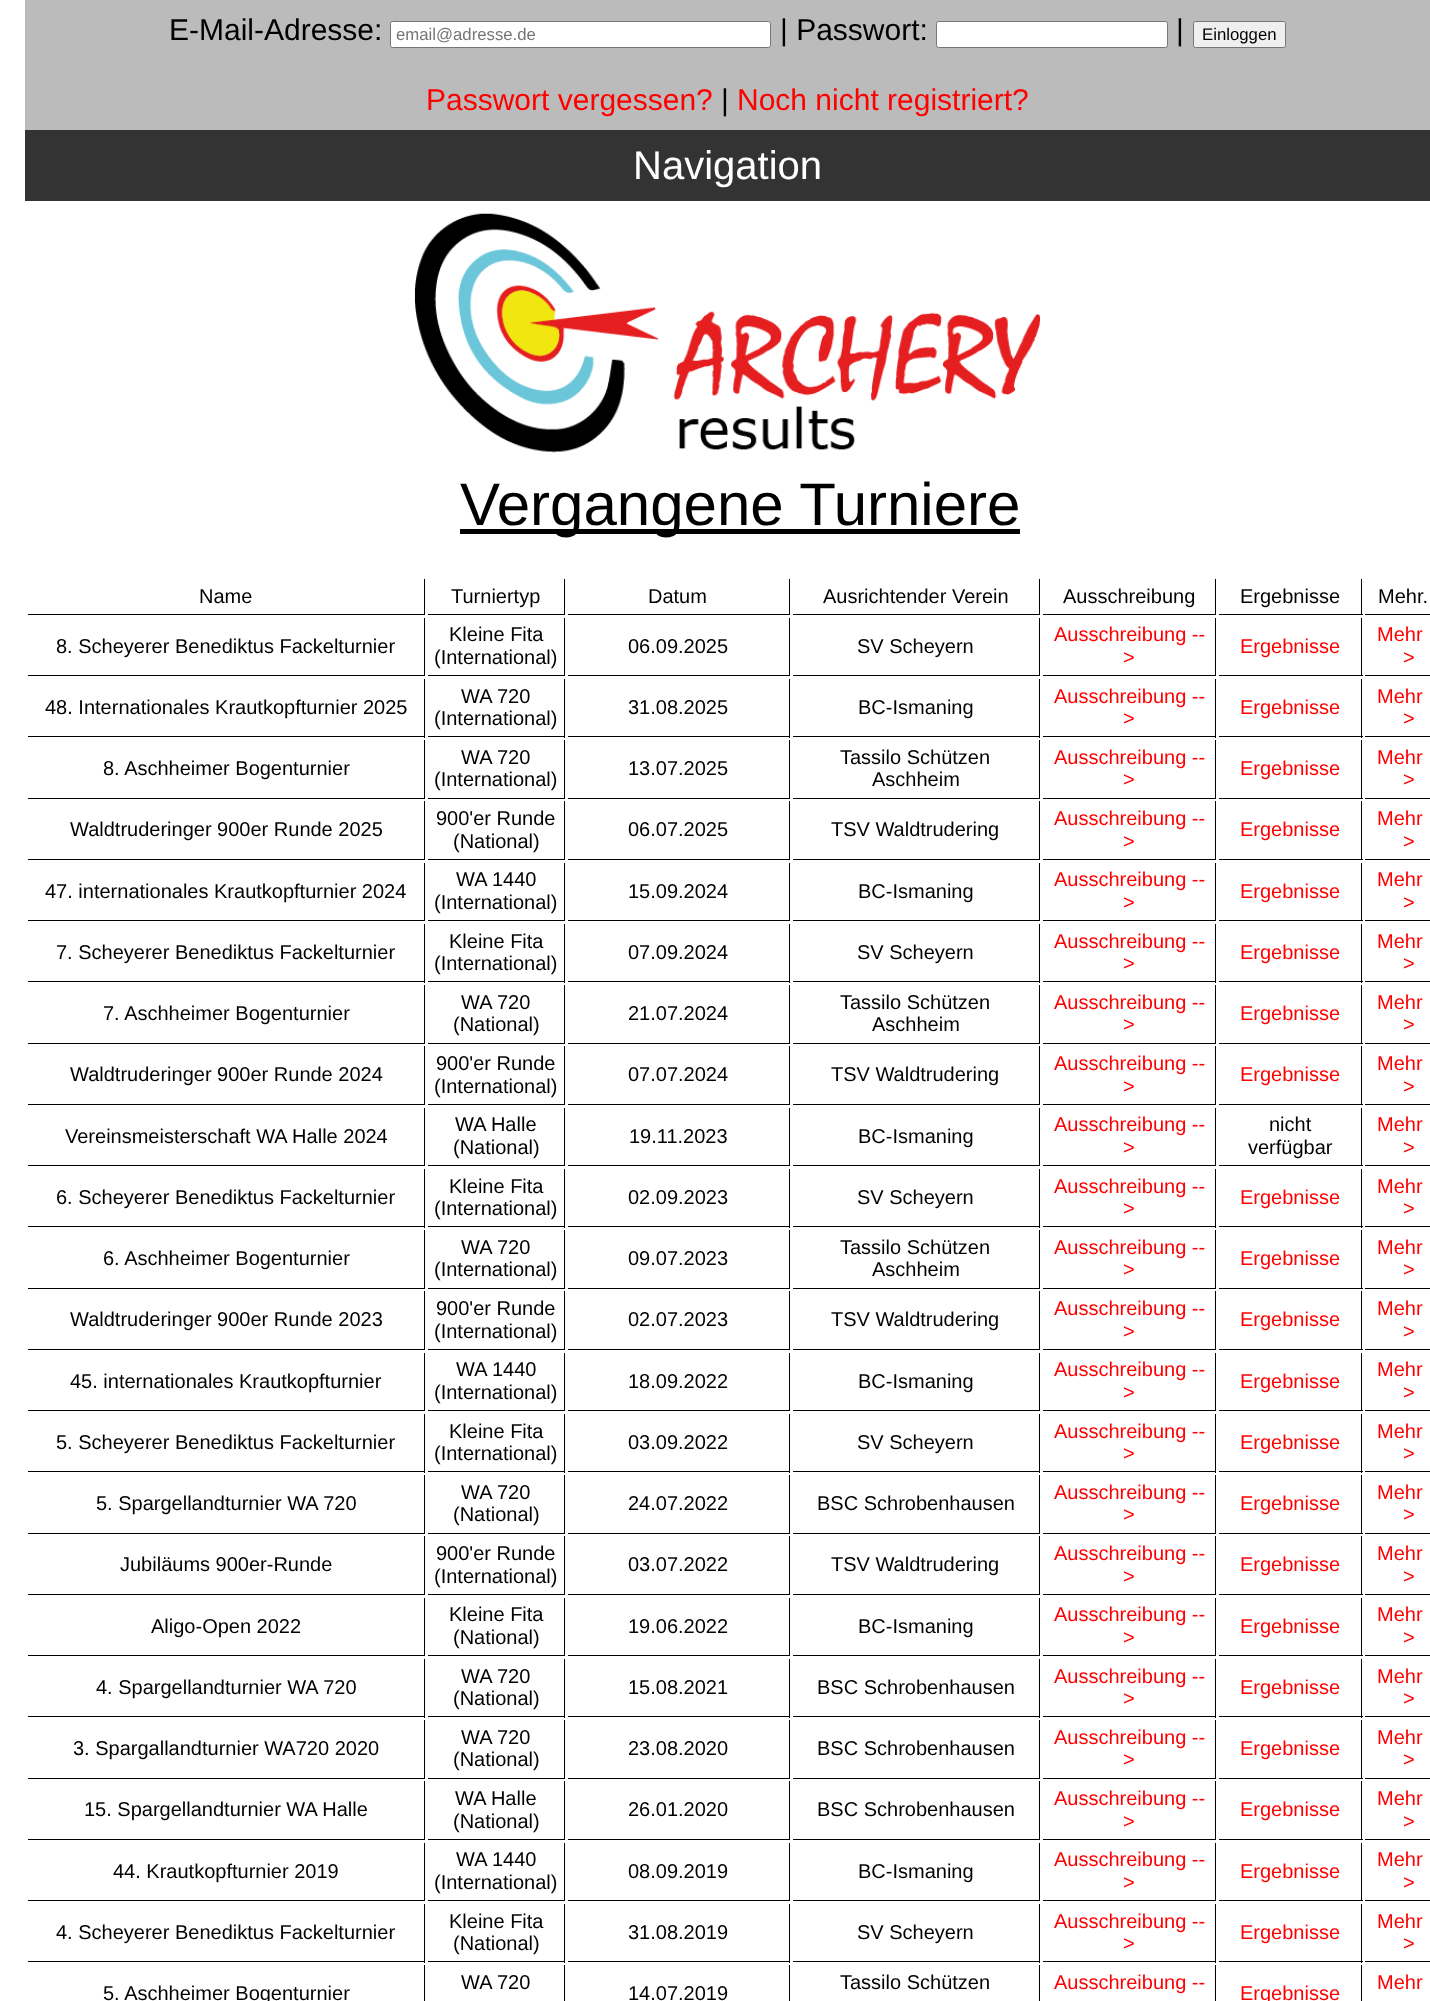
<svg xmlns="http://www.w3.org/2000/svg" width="1430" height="2001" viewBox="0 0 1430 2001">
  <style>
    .t1 { font: 30px Liberation Sans; fill: #000; }
    .t2 { font: 16.75px Liberation Sans; fill: #757575; }
    .t3 { font: 16.75px Liberation Sans; fill: #000; }
    .t4 { font: 30px Liberation Sans; fill: #f00; }
    .t5 { font: 40px Liberation Sans; fill: #fff; }
    .t6 { font: 60px Liberation Sans; fill: #000; }
    .t7 { font: 20px Liberation Sans; fill: #000; }
    .t8 { font: 20px Liberation Sans; fill: #f00; }
  </style>
  <rect width="100%" height="100%" fill="#fff"/>
  <rect x="25" y="0" width="1405" height="130" fill="#bbb"/>
  <text x="169" y="40" class="t1">E-Mail-Adresse:</text>
  <rect x="390.5" y="21.5" width="380" height="26" rx="2" fill="#fff" stroke="#767676"/>
  <text x="396" y="40" class="t2">email@adresse.de</text>
  <text x="780" y="40" class="t1">| Passwort:</text>
  <rect x="936.5" y="21.5" width="231" height="26" rx="2" fill="#fff" stroke="#767676"/>
  <text x="1176" y="40" class="t1">|</text>
  <rect x="1193.5" y="21.5" width="92" height="26" rx="2" fill="#efefef" stroke="#767676"/>
  <text x="1202" y="40" class="t3">Einloggen</text>
  <text x="426" y="110" class="t4">Passwort vergessen?</text>
  <text x="721" y="110" class="t1">|</text>
  <text x="737" y="110" class="t4">Noch nicht registriert?</text>
  <rect x="25" y="130" width="1405" height="71" fill="#333"/>
  <text x="633" y="179" class="t5">Navigation</text>
  <image x="415" y="213" width="625" height="240" href="images/1.png"/>
  <rect x="460" y="529" width="560" height="5" fill="#000"/>
  <text x="460" y="525" class="t6">Vergangene Turniere</text>
  <rect x="424" y="579" width="1" height="36" fill="#000"/>
  <rect x="28" y="614" width="397" height="1" fill="#000"/>
  <text x="199" y="603" class="t7">Name</text>
  <rect x="564" y="579" width="1" height="36" fill="#000"/>
  <rect x="428" y="614" width="137" height="1" fill="#000"/>
  <text x="451" y="603" class="t7">Turniertyp</text>
  <rect x="789" y="579" width="1" height="36" fill="#000"/>
  <rect x="568" y="614" width="222" height="1" fill="#000"/>
  <text x="648" y="603" class="t7">Datum</text>
  <rect x="1039" y="579" width="1" height="36" fill="#000"/>
  <rect x="793" y="614" width="247" height="1" fill="#000"/>
  <text x="823" y="603" class="t7">Ausrichtender Verein</text>
  <rect x="1215" y="579" width="1" height="36" fill="#000"/>
  <rect x="1043" y="614" width="173" height="1" fill="#000"/>
  <text x="1063" y="603" class="t7">Ausschreibung</text>
  <rect x="1361" y="579" width="1" height="36" fill="#000"/>
  <rect x="1219" y="614" width="144" height="1" fill="#000"/>
  <text x="1240" y="603" class="t7">Ergebnisse</text>
  <rect x="1365" y="614" width="65" height="1" fill="#000"/>
  <text x="1378" y="603" class="t7">Mehr.</text>
  <rect x="424" y="618" width="1" height="58" fill="#000"/>
  <rect x="28" y="675" width="397" height="1" fill="#000"/>
  <text x="56" y="653" class="t7">8. Scheyerer Benediktus Fackelturnier</text>
  <rect x="564" y="618" width="1" height="58" fill="#000"/>
  <rect x="428" y="675" width="137" height="1" fill="#000"/>
  <text x="449" y="641" class="t7">Kleine Fita</text>
  <text x="434" y="664" class="t7">(International)</text>
  <rect x="789" y="618" width="1" height="58" fill="#000"/>
  <rect x="568" y="675" width="222" height="1" fill="#000"/>
  <text x="628" y="653" class="t7">06.09.2025</text>
  <rect x="1039" y="618" width="1" height="58" fill="#000"/>
  <rect x="793" y="675" width="247" height="1" fill="#000"/>
  <text x="857" y="653" class="t7">SV Scheyern</text>
  <rect x="1215" y="618" width="1" height="58" fill="#000"/>
  <rect x="1043" y="675" width="173" height="1" fill="#000"/>
  <text x="1054" y="641" class="t8">Ausschreibung --</text>
  <text x="1123" y="664" class="t8">&gt;</text>
  <rect x="1361" y="618" width="1" height="58" fill="#000"/>
  <rect x="1219" y="675" width="144" height="1" fill="#000"/>
  <text x="1240" y="653" class="t8">Ergebnisse</text>
  <rect x="1365" y="675" width="65" height="1" fill="#000"/>
  <text x="1377" y="641" class="t8">Mehr</text>
  <text x="1403" y="664" class="t8">&gt;</text>
  <rect x="424" y="679" width="1" height="59" fill="#000"/>
  <rect x="28" y="736" width="397" height="1" fill="#000"/>
  <text x="45" y="714" class="t7">48. Internationales Krautkopfturnier 2025</text>
  <rect x="564" y="679" width="1" height="59" fill="#000"/>
  <rect x="428" y="736" width="137" height="1" fill="#000"/>
  <text x="461" y="703" class="t7">WA 720</text>
  <text x="434" y="725" class="t7">(International)</text>
  <rect x="789" y="679" width="1" height="59" fill="#000"/>
  <rect x="568" y="736" width="222" height="1" fill="#000"/>
  <text x="628" y="714" class="t7">31.08.2025</text>
  <rect x="1039" y="679" width="1" height="59" fill="#000"/>
  <rect x="793" y="736" width="247" height="1" fill="#000"/>
  <text x="858" y="714" class="t7">BC-Ismaning</text>
  <rect x="1215" y="679" width="1" height="59" fill="#000"/>
  <rect x="1043" y="736" width="173" height="1" fill="#000"/>
  <text x="1054" y="703" class="t8">Ausschreibung --</text>
  <text x="1123" y="725" class="t8">&gt;</text>
  <rect x="1361" y="679" width="1" height="59" fill="#000"/>
  <rect x="1219" y="736" width="144" height="1" fill="#000"/>
  <text x="1240" y="714" class="t8">Ergebnisse</text>
  <rect x="1365" y="736" width="65" height="1" fill="#000"/>
  <text x="1377" y="703" class="t8">Mehr</text>
  <text x="1403" y="725" class="t8">&gt;</text>
  <rect x="424" y="740" width="1" height="59" fill="#000"/>
  <rect x="28" y="798" width="397" height="1" fill="#000"/>
  <text x="103" y="775" class="t7">8. Aschheimer Bogenturnier</text>
  <rect x="564" y="740" width="1" height="59" fill="#000"/>
  <rect x="428" y="798" width="137" height="1" fill="#000"/>
  <text x="461" y="764" class="t7">WA 720</text>
  <text x="434" y="786" class="t7">(International)</text>
  <rect x="789" y="740" width="1" height="59" fill="#000"/>
  <rect x="568" y="798" width="222" height="1" fill="#000"/>
  <text x="628" y="775" class="t7">13.07.2025</text>
  <rect x="1039" y="740" width="1" height="59" fill="#000"/>
  <rect x="793" y="798" width="247" height="1" fill="#000"/>
  <text x="840" y="764" class="t7">Tassilo Schützen</text>
  <text x="872" y="786" class="t7">Aschheim</text>
  <rect x="1215" y="740" width="1" height="59" fill="#000"/>
  <rect x="1043" y="798" width="173" height="1" fill="#000"/>
  <text x="1054" y="764" class="t8">Ausschreibung --</text>
  <text x="1123" y="786" class="t8">&gt;</text>
  <rect x="1361" y="740" width="1" height="59" fill="#000"/>
  <rect x="1219" y="798" width="144" height="1" fill="#000"/>
  <text x="1240" y="775" class="t8">Ergebnisse</text>
  <rect x="1365" y="798" width="65" height="1" fill="#000"/>
  <text x="1377" y="764" class="t8">Mehr</text>
  <text x="1403" y="786" class="t8">&gt;</text>
  <rect x="424" y="801" width="1" height="59" fill="#000"/>
  <rect x="28" y="859" width="397" height="1" fill="#000"/>
  <text x="70" y="836" class="t7">Waldtruderinger 900er Runde 2025</text>
  <rect x="564" y="801" width="1" height="59" fill="#000"/>
  <rect x="428" y="859" width="137" height="1" fill="#000"/>
  <text x="436" y="825" class="t7">900'er Runde</text>
  <text x="453" y="848" class="t7">(National)</text>
  <rect x="789" y="801" width="1" height="59" fill="#000"/>
  <rect x="568" y="859" width="222" height="1" fill="#000"/>
  <text x="628" y="836" class="t7">06.07.2025</text>
  <rect x="1039" y="801" width="1" height="59" fill="#000"/>
  <rect x="793" y="859" width="247" height="1" fill="#000"/>
  <text x="831" y="836" class="t7">TSV Waldtrudering</text>
  <rect x="1215" y="801" width="1" height="59" fill="#000"/>
  <rect x="1043" y="859" width="173" height="1" fill="#000"/>
  <text x="1054" y="825" class="t8">Ausschreibung --</text>
  <text x="1123" y="848" class="t8">&gt;</text>
  <rect x="1361" y="801" width="1" height="59" fill="#000"/>
  <rect x="1219" y="859" width="144" height="1" fill="#000"/>
  <text x="1240" y="836" class="t8">Ergebnisse</text>
  <rect x="1365" y="859" width="65" height="1" fill="#000"/>
  <text x="1377" y="825" class="t8">Mehr</text>
  <text x="1403" y="848" class="t8">&gt;</text>
  <rect x="424" y="863" width="1" height="58" fill="#000"/>
  <rect x="28" y="920" width="397" height="1" fill="#000"/>
  <text x="45" y="898" class="t7">47. internationales Krautkopfturnier 2024</text>
  <rect x="564" y="863" width="1" height="58" fill="#000"/>
  <rect x="428" y="920" width="137" height="1" fill="#000"/>
  <text x="456" y="886" class="t7">WA 1440</text>
  <text x="434" y="909" class="t7">(International)</text>
  <rect x="789" y="863" width="1" height="58" fill="#000"/>
  <rect x="568" y="920" width="222" height="1" fill="#000"/>
  <text x="628" y="898" class="t7">15.09.2024</text>
  <rect x="1039" y="863" width="1" height="58" fill="#000"/>
  <rect x="793" y="920" width="247" height="1" fill="#000"/>
  <text x="858" y="898" class="t7">BC-Ismaning</text>
  <rect x="1215" y="863" width="1" height="58" fill="#000"/>
  <rect x="1043" y="920" width="173" height="1" fill="#000"/>
  <text x="1054" y="886" class="t8">Ausschreibung --</text>
  <text x="1123" y="909" class="t8">&gt;</text>
  <rect x="1361" y="863" width="1" height="58" fill="#000"/>
  <rect x="1219" y="920" width="144" height="1" fill="#000"/>
  <text x="1240" y="898" class="t8">Ergebnisse</text>
  <rect x="1365" y="920" width="65" height="1" fill="#000"/>
  <text x="1377" y="886" class="t8">Mehr</text>
  <text x="1403" y="909" class="t8">&gt;</text>
  <rect x="424" y="924" width="1" height="59" fill="#000"/>
  <rect x="28" y="981" width="397" height="1" fill="#000"/>
  <text x="56" y="959" class="t7">7. Scheyerer Benediktus Fackelturnier</text>
  <rect x="564" y="924" width="1" height="59" fill="#000"/>
  <rect x="428" y="981" width="137" height="1" fill="#000"/>
  <text x="449" y="948" class="t7">Kleine Fita</text>
  <text x="434" y="970" class="t7">(International)</text>
  <rect x="789" y="924" width="1" height="59" fill="#000"/>
  <rect x="568" y="981" width="222" height="1" fill="#000"/>
  <text x="628" y="959" class="t7">07.09.2024</text>
  <rect x="1039" y="924" width="1" height="59" fill="#000"/>
  <rect x="793" y="981" width="247" height="1" fill="#000"/>
  <text x="857" y="959" class="t7">SV Scheyern</text>
  <rect x="1215" y="924" width="1" height="59" fill="#000"/>
  <rect x="1043" y="981" width="173" height="1" fill="#000"/>
  <text x="1054" y="948" class="t8">Ausschreibung --</text>
  <text x="1123" y="970" class="t8">&gt;</text>
  <rect x="1361" y="924" width="1" height="59" fill="#000"/>
  <rect x="1219" y="981" width="144" height="1" fill="#000"/>
  <text x="1240" y="959" class="t8">Ergebnisse</text>
  <rect x="1365" y="981" width="65" height="1" fill="#000"/>
  <text x="1377" y="948" class="t8">Mehr</text>
  <text x="1403" y="970" class="t8">&gt;</text>
  <rect x="424" y="985" width="1" height="59" fill="#000"/>
  <rect x="28" y="1043" width="397" height="1" fill="#000"/>
  <text x="103" y="1020" class="t7">7. Aschheimer Bogenturnier</text>
  <rect x="564" y="985" width="1" height="59" fill="#000"/>
  <rect x="428" y="1043" width="137" height="1" fill="#000"/>
  <text x="461" y="1009" class="t7">WA 720</text>
  <text x="453" y="1031" class="t7">(National)</text>
  <rect x="789" y="985" width="1" height="59" fill="#000"/>
  <rect x="568" y="1043" width="222" height="1" fill="#000"/>
  <text x="628" y="1020" class="t7">21.07.2024</text>
  <rect x="1039" y="985" width="1" height="59" fill="#000"/>
  <rect x="793" y="1043" width="247" height="1" fill="#000"/>
  <text x="840" y="1009" class="t7">Tassilo Schützen</text>
  <text x="872" y="1031" class="t7">Aschheim</text>
  <rect x="1215" y="985" width="1" height="59" fill="#000"/>
  <rect x="1043" y="1043" width="173" height="1" fill="#000"/>
  <text x="1054" y="1009" class="t8">Ausschreibung --</text>
  <text x="1123" y="1031" class="t8">&gt;</text>
  <rect x="1361" y="985" width="1" height="59" fill="#000"/>
  <rect x="1219" y="1043" width="144" height="1" fill="#000"/>
  <text x="1240" y="1020" class="t8">Ergebnisse</text>
  <rect x="1365" y="1043" width="65" height="1" fill="#000"/>
  <text x="1377" y="1009" class="t8">Mehr</text>
  <text x="1403" y="1031" class="t8">&gt;</text>
  <rect x="424" y="1046" width="1" height="59" fill="#000"/>
  <rect x="28" y="1104" width="397" height="1" fill="#000"/>
  <text x="70" y="1081" class="t7">Waldtruderinger 900er Runde 2024</text>
  <rect x="564" y="1046" width="1" height="59" fill="#000"/>
  <rect x="428" y="1104" width="137" height="1" fill="#000"/>
  <text x="436" y="1070" class="t7">900'er Runde</text>
  <text x="434" y="1093" class="t7">(International)</text>
  <rect x="789" y="1046" width="1" height="59" fill="#000"/>
  <rect x="568" y="1104" width="222" height="1" fill="#000"/>
  <text x="628" y="1081" class="t7">07.07.2024</text>
  <rect x="1039" y="1046" width="1" height="59" fill="#000"/>
  <rect x="793" y="1104" width="247" height="1" fill="#000"/>
  <text x="831" y="1081" class="t7">TSV Waldtrudering</text>
  <rect x="1215" y="1046" width="1" height="59" fill="#000"/>
  <rect x="1043" y="1104" width="173" height="1" fill="#000"/>
  <text x="1054" y="1070" class="t8">Ausschreibung --</text>
  <text x="1123" y="1093" class="t8">&gt;</text>
  <rect x="1361" y="1046" width="1" height="59" fill="#000"/>
  <rect x="1219" y="1104" width="144" height="1" fill="#000"/>
  <text x="1240" y="1081" class="t8">Ergebnisse</text>
  <rect x="1365" y="1104" width="65" height="1" fill="#000"/>
  <text x="1377" y="1070" class="t8">Mehr</text>
  <text x="1403" y="1093" class="t8">&gt;</text>
  <rect x="424" y="1108" width="1" height="58" fill="#000"/>
  <rect x="28" y="1165" width="397" height="1" fill="#000"/>
  <text x="65" y="1143" class="t7">Vereinsmeisterschaft WA Halle 2024</text>
  <rect x="564" y="1108" width="1" height="58" fill="#000"/>
  <rect x="428" y="1165" width="137" height="1" fill="#000"/>
  <text x="455" y="1131" class="t7">WA Halle</text>
  <text x="453" y="1154" class="t7">(National)</text>
  <rect x="789" y="1108" width="1" height="58" fill="#000"/>
  <rect x="568" y="1165" width="222" height="1" fill="#000"/>
  <text x="629" y="1143" class="t7">19.11.2023</text>
  <rect x="1039" y="1108" width="1" height="58" fill="#000"/>
  <rect x="793" y="1165" width="247" height="1" fill="#000"/>
  <text x="858" y="1143" class="t7">BC-Ismaning</text>
  <rect x="1215" y="1108" width="1" height="58" fill="#000"/>
  <rect x="1043" y="1165" width="173" height="1" fill="#000"/>
  <text x="1054" y="1131" class="t8">Ausschreibung --</text>
  <text x="1123" y="1154" class="t8">&gt;</text>
  <rect x="1361" y="1108" width="1" height="58" fill="#000"/>
  <rect x="1219" y="1165" width="144" height="1" fill="#000"/>
  <text x="1269" y="1131" class="t7">nicht</text>
  <text x="1248" y="1154" class="t7">verfügbar</text>
  <rect x="1365" y="1165" width="65" height="1" fill="#000"/>
  <text x="1377" y="1131" class="t8">Mehr</text>
  <text x="1403" y="1154" class="t8">&gt;</text>
  <rect x="424" y="1169" width="1" height="59" fill="#000"/>
  <rect x="28" y="1226" width="397" height="1" fill="#000"/>
  <text x="56" y="1204" class="t7">6. Scheyerer Benediktus Fackelturnier</text>
  <rect x="564" y="1169" width="1" height="59" fill="#000"/>
  <rect x="428" y="1226" width="137" height="1" fill="#000"/>
  <text x="449" y="1193" class="t7">Kleine Fita</text>
  <text x="434" y="1215" class="t7">(International)</text>
  <rect x="789" y="1169" width="1" height="59" fill="#000"/>
  <rect x="568" y="1226" width="222" height="1" fill="#000"/>
  <text x="628" y="1204" class="t7">02.09.2023</text>
  <rect x="1039" y="1169" width="1" height="59" fill="#000"/>
  <rect x="793" y="1226" width="247" height="1" fill="#000"/>
  <text x="857" y="1204" class="t7">SV Scheyern</text>
  <rect x="1215" y="1169" width="1" height="59" fill="#000"/>
  <rect x="1043" y="1226" width="173" height="1" fill="#000"/>
  <text x="1054" y="1193" class="t8">Ausschreibung --</text>
  <text x="1123" y="1215" class="t8">&gt;</text>
  <rect x="1361" y="1169" width="1" height="59" fill="#000"/>
  <rect x="1219" y="1226" width="144" height="1" fill="#000"/>
  <text x="1240" y="1204" class="t8">Ergebnisse</text>
  <rect x="1365" y="1226" width="65" height="1" fill="#000"/>
  <text x="1377" y="1193" class="t8">Mehr</text>
  <text x="1403" y="1215" class="t8">&gt;</text>
  <rect x="424" y="1230" width="1" height="59" fill="#000"/>
  <rect x="28" y="1288" width="397" height="1" fill="#000"/>
  <text x="103" y="1265" class="t7">6. Aschheimer Bogenturnier</text>
  <rect x="564" y="1230" width="1" height="59" fill="#000"/>
  <rect x="428" y="1288" width="137" height="1" fill="#000"/>
  <text x="461" y="1254" class="t7">WA 720</text>
  <text x="434" y="1276" class="t7">(International)</text>
  <rect x="789" y="1230" width="1" height="59" fill="#000"/>
  <rect x="568" y="1288" width="222" height="1" fill="#000"/>
  <text x="628" y="1265" class="t7">09.07.2023</text>
  <rect x="1039" y="1230" width="1" height="59" fill="#000"/>
  <rect x="793" y="1288" width="247" height="1" fill="#000"/>
  <text x="840" y="1254" class="t7">Tassilo Schützen</text>
  <text x="872" y="1276" class="t7">Aschheim</text>
  <rect x="1215" y="1230" width="1" height="59" fill="#000"/>
  <rect x="1043" y="1288" width="173" height="1" fill="#000"/>
  <text x="1054" y="1254" class="t8">Ausschreibung --</text>
  <text x="1123" y="1276" class="t8">&gt;</text>
  <rect x="1361" y="1230" width="1" height="59" fill="#000"/>
  <rect x="1219" y="1288" width="144" height="1" fill="#000"/>
  <text x="1240" y="1265" class="t8">Ergebnisse</text>
  <rect x="1365" y="1288" width="65" height="1" fill="#000"/>
  <text x="1377" y="1254" class="t8">Mehr</text>
  <text x="1403" y="1276" class="t8">&gt;</text>
  <rect x="424" y="1291" width="1" height="59" fill="#000"/>
  <rect x="28" y="1349" width="397" height="1" fill="#000"/>
  <text x="70" y="1326" class="t7">Waldtruderinger 900er Runde 2023</text>
  <rect x="564" y="1291" width="1" height="59" fill="#000"/>
  <rect x="428" y="1349" width="137" height="1" fill="#000"/>
  <text x="436" y="1315" class="t7">900'er Runde</text>
  <text x="434" y="1338" class="t7">(International)</text>
  <rect x="789" y="1291" width="1" height="59" fill="#000"/>
  <rect x="568" y="1349" width="222" height="1" fill="#000"/>
  <text x="628" y="1326" class="t7">02.07.2023</text>
  <rect x="1039" y="1291" width="1" height="59" fill="#000"/>
  <rect x="793" y="1349" width="247" height="1" fill="#000"/>
  <text x="831" y="1326" class="t7">TSV Waldtrudering</text>
  <rect x="1215" y="1291" width="1" height="59" fill="#000"/>
  <rect x="1043" y="1349" width="173" height="1" fill="#000"/>
  <text x="1054" y="1315" class="t8">Ausschreibung --</text>
  <text x="1123" y="1338" class="t8">&gt;</text>
  <rect x="1361" y="1291" width="1" height="59" fill="#000"/>
  <rect x="1219" y="1349" width="144" height="1" fill="#000"/>
  <text x="1240" y="1326" class="t8">Ergebnisse</text>
  <rect x="1365" y="1349" width="65" height="1" fill="#000"/>
  <text x="1377" y="1315" class="t8">Mehr</text>
  <text x="1403" y="1338" class="t8">&gt;</text>
  <rect x="424" y="1353" width="1" height="58" fill="#000"/>
  <rect x="28" y="1410" width="397" height="1" fill="#000"/>
  <text x="70" y="1388" class="t7">45. internationales Krautkopfturnier</text>
  <rect x="564" y="1353" width="1" height="58" fill="#000"/>
  <rect x="428" y="1410" width="137" height="1" fill="#000"/>
  <text x="456" y="1376" class="t7">WA 1440</text>
  <text x="434" y="1399" class="t7">(International)</text>
  <rect x="789" y="1353" width="1" height="58" fill="#000"/>
  <rect x="568" y="1410" width="222" height="1" fill="#000"/>
  <text x="628" y="1388" class="t7">18.09.2022</text>
  <rect x="1039" y="1353" width="1" height="58" fill="#000"/>
  <rect x="793" y="1410" width="247" height="1" fill="#000"/>
  <text x="858" y="1388" class="t7">BC-Ismaning</text>
  <rect x="1215" y="1353" width="1" height="58" fill="#000"/>
  <rect x="1043" y="1410" width="173" height="1" fill="#000"/>
  <text x="1054" y="1376" class="t8">Ausschreibung --</text>
  <text x="1123" y="1399" class="t8">&gt;</text>
  <rect x="1361" y="1353" width="1" height="58" fill="#000"/>
  <rect x="1219" y="1410" width="144" height="1" fill="#000"/>
  <text x="1240" y="1388" class="t8">Ergebnisse</text>
  <rect x="1365" y="1410" width="65" height="1" fill="#000"/>
  <text x="1377" y="1376" class="t8">Mehr</text>
  <text x="1403" y="1399" class="t8">&gt;</text>
  <rect x="424" y="1414" width="1" height="59" fill="#000"/>
  <rect x="28" y="1471" width="397" height="1" fill="#000"/>
  <text x="56" y="1449" class="t7">5. Scheyerer Benediktus Fackelturnier</text>
  <rect x="564" y="1414" width="1" height="59" fill="#000"/>
  <rect x="428" y="1471" width="137" height="1" fill="#000"/>
  <text x="449" y="1438" class="t7">Kleine Fita</text>
  <text x="434" y="1460" class="t7">(International)</text>
  <rect x="789" y="1414" width="1" height="59" fill="#000"/>
  <rect x="568" y="1471" width="222" height="1" fill="#000"/>
  <text x="628" y="1449" class="t7">03.09.2022</text>
  <rect x="1039" y="1414" width="1" height="59" fill="#000"/>
  <rect x="793" y="1471" width="247" height="1" fill="#000"/>
  <text x="857" y="1449" class="t7">SV Scheyern</text>
  <rect x="1215" y="1414" width="1" height="59" fill="#000"/>
  <rect x="1043" y="1471" width="173" height="1" fill="#000"/>
  <text x="1054" y="1438" class="t8">Ausschreibung --</text>
  <text x="1123" y="1460" class="t8">&gt;</text>
  <rect x="1361" y="1414" width="1" height="59" fill="#000"/>
  <rect x="1219" y="1471" width="144" height="1" fill="#000"/>
  <text x="1240" y="1449" class="t8">Ergebnisse</text>
  <rect x="1365" y="1471" width="65" height="1" fill="#000"/>
  <text x="1377" y="1438" class="t8">Mehr</text>
  <text x="1403" y="1460" class="t8">&gt;</text>
  <rect x="424" y="1475" width="1" height="59" fill="#000"/>
  <rect x="28" y="1533" width="397" height="1" fill="#000"/>
  <text x="96" y="1510" class="t7">5. Spargellandturnier WA 720</text>
  <rect x="564" y="1475" width="1" height="59" fill="#000"/>
  <rect x="428" y="1533" width="137" height="1" fill="#000"/>
  <text x="461" y="1499" class="t7">WA 720</text>
  <text x="453" y="1521" class="t7">(National)</text>
  <rect x="789" y="1475" width="1" height="59" fill="#000"/>
  <rect x="568" y="1533" width="222" height="1" fill="#000"/>
  <text x="628" y="1510" class="t7">24.07.2022</text>
  <rect x="1039" y="1475" width="1" height="59" fill="#000"/>
  <rect x="793" y="1533" width="247" height="1" fill="#000"/>
  <text x="817" y="1510" class="t7">BSC Schrobenhausen</text>
  <rect x="1215" y="1475" width="1" height="59" fill="#000"/>
  <rect x="1043" y="1533" width="173" height="1" fill="#000"/>
  <text x="1054" y="1499" class="t8">Ausschreibung --</text>
  <text x="1123" y="1521" class="t8">&gt;</text>
  <rect x="1361" y="1475" width="1" height="59" fill="#000"/>
  <rect x="1219" y="1533" width="144" height="1" fill="#000"/>
  <text x="1240" y="1510" class="t8">Ergebnisse</text>
  <rect x="1365" y="1533" width="65" height="1" fill="#000"/>
  <text x="1377" y="1499" class="t8">Mehr</text>
  <text x="1403" y="1521" class="t8">&gt;</text>
  <rect x="424" y="1536" width="1" height="59" fill="#000"/>
  <rect x="28" y="1594" width="397" height="1" fill="#000"/>
  <text x="120" y="1571" class="t7">Jubiläums 900er-Runde</text>
  <rect x="564" y="1536" width="1" height="59" fill="#000"/>
  <rect x="428" y="1594" width="137" height="1" fill="#000"/>
  <text x="436" y="1560" class="t7">900'er Runde</text>
  <text x="434" y="1583" class="t7">(International)</text>
  <rect x="789" y="1536" width="1" height="59" fill="#000"/>
  <rect x="568" y="1594" width="222" height="1" fill="#000"/>
  <text x="628" y="1571" class="t7">03.07.2022</text>
  <rect x="1039" y="1536" width="1" height="59" fill="#000"/>
  <rect x="793" y="1594" width="247" height="1" fill="#000"/>
  <text x="831" y="1571" class="t7">TSV Waldtrudering</text>
  <rect x="1215" y="1536" width="1" height="59" fill="#000"/>
  <rect x="1043" y="1594" width="173" height="1" fill="#000"/>
  <text x="1054" y="1560" class="t8">Ausschreibung --</text>
  <text x="1123" y="1583" class="t8">&gt;</text>
  <rect x="1361" y="1536" width="1" height="59" fill="#000"/>
  <rect x="1219" y="1594" width="144" height="1" fill="#000"/>
  <text x="1240" y="1571" class="t8">Ergebnisse</text>
  <rect x="1365" y="1594" width="65" height="1" fill="#000"/>
  <text x="1377" y="1560" class="t8">Mehr</text>
  <text x="1403" y="1583" class="t8">&gt;</text>
  <rect x="424" y="1598" width="1" height="58" fill="#000"/>
  <rect x="28" y="1655" width="397" height="1" fill="#000"/>
  <text x="151" y="1633" class="t7">Aligo-Open 2022</text>
  <rect x="564" y="1598" width="1" height="58" fill="#000"/>
  <rect x="428" y="1655" width="137" height="1" fill="#000"/>
  <text x="449" y="1621" class="t7">Kleine Fita</text>
  <text x="453" y="1644" class="t7">(National)</text>
  <rect x="789" y="1598" width="1" height="58" fill="#000"/>
  <rect x="568" y="1655" width="222" height="1" fill="#000"/>
  <text x="628" y="1633" class="t7">19.06.2022</text>
  <rect x="1039" y="1598" width="1" height="58" fill="#000"/>
  <rect x="793" y="1655" width="247" height="1" fill="#000"/>
  <text x="858" y="1633" class="t7">BC-Ismaning</text>
  <rect x="1215" y="1598" width="1" height="58" fill="#000"/>
  <rect x="1043" y="1655" width="173" height="1" fill="#000"/>
  <text x="1054" y="1621" class="t8">Ausschreibung --</text>
  <text x="1123" y="1644" class="t8">&gt;</text>
  <rect x="1361" y="1598" width="1" height="58" fill="#000"/>
  <rect x="1219" y="1655" width="144" height="1" fill="#000"/>
  <text x="1240" y="1633" class="t8">Ergebnisse</text>
  <rect x="1365" y="1655" width="65" height="1" fill="#000"/>
  <text x="1377" y="1621" class="t8">Mehr</text>
  <text x="1403" y="1644" class="t8">&gt;</text>
  <rect x="424" y="1659" width="1" height="59" fill="#000"/>
  <rect x="28" y="1716" width="397" height="1" fill="#000"/>
  <text x="96" y="1694" class="t7">4. Spargellandturnier WA 720</text>
  <rect x="564" y="1659" width="1" height="59" fill="#000"/>
  <rect x="428" y="1716" width="137" height="1" fill="#000"/>
  <text x="461" y="1683" class="t7">WA 720</text>
  <text x="453" y="1705" class="t7">(National)</text>
  <rect x="789" y="1659" width="1" height="59" fill="#000"/>
  <rect x="568" y="1716" width="222" height="1" fill="#000"/>
  <text x="628" y="1694" class="t7">15.08.2021</text>
  <rect x="1039" y="1659" width="1" height="59" fill="#000"/>
  <rect x="793" y="1716" width="247" height="1" fill="#000"/>
  <text x="817" y="1694" class="t7">BSC Schrobenhausen</text>
  <rect x="1215" y="1659" width="1" height="59" fill="#000"/>
  <rect x="1043" y="1716" width="173" height="1" fill="#000"/>
  <text x="1054" y="1683" class="t8">Ausschreibung --</text>
  <text x="1123" y="1705" class="t8">&gt;</text>
  <rect x="1361" y="1659" width="1" height="59" fill="#000"/>
  <rect x="1219" y="1716" width="144" height="1" fill="#000"/>
  <text x="1240" y="1694" class="t8">Ergebnisse</text>
  <rect x="1365" y="1716" width="65" height="1" fill="#000"/>
  <text x="1377" y="1683" class="t8">Mehr</text>
  <text x="1403" y="1705" class="t8">&gt;</text>
  <rect x="424" y="1720" width="1" height="59" fill="#000"/>
  <rect x="28" y="1778" width="397" height="1" fill="#000"/>
  <text x="73" y="1755" class="t7">3. Spargallandturnier WA720 2020</text>
  <rect x="564" y="1720" width="1" height="59" fill="#000"/>
  <rect x="428" y="1778" width="137" height="1" fill="#000"/>
  <text x="461" y="1744" class="t7">WA 720</text>
  <text x="453" y="1766" class="t7">(National)</text>
  <rect x="789" y="1720" width="1" height="59" fill="#000"/>
  <rect x="568" y="1778" width="222" height="1" fill="#000"/>
  <text x="628" y="1755" class="t7">23.08.2020</text>
  <rect x="1039" y="1720" width="1" height="59" fill="#000"/>
  <rect x="793" y="1778" width="247" height="1" fill="#000"/>
  <text x="817" y="1755" class="t7">BSC Schrobenhausen</text>
  <rect x="1215" y="1720" width="1" height="59" fill="#000"/>
  <rect x="1043" y="1778" width="173" height="1" fill="#000"/>
  <text x="1054" y="1744" class="t8">Ausschreibung --</text>
  <text x="1123" y="1766" class="t8">&gt;</text>
  <rect x="1361" y="1720" width="1" height="59" fill="#000"/>
  <rect x="1219" y="1778" width="144" height="1" fill="#000"/>
  <text x="1240" y="1755" class="t8">Ergebnisse</text>
  <rect x="1365" y="1778" width="65" height="1" fill="#000"/>
  <text x="1377" y="1744" class="t8">Mehr</text>
  <text x="1403" y="1766" class="t8">&gt;</text>
  <rect x="424" y="1781" width="1" height="59" fill="#000"/>
  <rect x="28" y="1839" width="397" height="1" fill="#000"/>
  <text x="84" y="1816" class="t7">15. Spargellandturnier WA Halle</text>
  <rect x="564" y="1781" width="1" height="59" fill="#000"/>
  <rect x="428" y="1839" width="137" height="1" fill="#000"/>
  <text x="455" y="1805" class="t7">WA Halle</text>
  <text x="453" y="1828" class="t7">(National)</text>
  <rect x="789" y="1781" width="1" height="59" fill="#000"/>
  <rect x="568" y="1839" width="222" height="1" fill="#000"/>
  <text x="628" y="1816" class="t7">26.01.2020</text>
  <rect x="1039" y="1781" width="1" height="59" fill="#000"/>
  <rect x="793" y="1839" width="247" height="1" fill="#000"/>
  <text x="817" y="1816" class="t7">BSC Schrobenhausen</text>
  <rect x="1215" y="1781" width="1" height="59" fill="#000"/>
  <rect x="1043" y="1839" width="173" height="1" fill="#000"/>
  <text x="1054" y="1805" class="t8">Ausschreibung --</text>
  <text x="1123" y="1828" class="t8">&gt;</text>
  <rect x="1361" y="1781" width="1" height="59" fill="#000"/>
  <rect x="1219" y="1839" width="144" height="1" fill="#000"/>
  <text x="1240" y="1816" class="t8">Ergebnisse</text>
  <rect x="1365" y="1839" width="65" height="1" fill="#000"/>
  <text x="1377" y="1805" class="t8">Mehr</text>
  <text x="1403" y="1828" class="t8">&gt;</text>
  <rect x="424" y="1843" width="1" height="58" fill="#000"/>
  <rect x="28" y="1900" width="397" height="1" fill="#000"/>
  <text x="113" y="1878" class="t7">44. Krautkopfturnier 2019</text>
  <rect x="564" y="1843" width="1" height="58" fill="#000"/>
  <rect x="428" y="1900" width="137" height="1" fill="#000"/>
  <text x="456" y="1866" class="t7">WA 1440</text>
  <text x="434" y="1889" class="t7">(International)</text>
  <rect x="789" y="1843" width="1" height="58" fill="#000"/>
  <rect x="568" y="1900" width="222" height="1" fill="#000"/>
  <text x="628" y="1878" class="t7">08.09.2019</text>
  <rect x="1039" y="1843" width="1" height="58" fill="#000"/>
  <rect x="793" y="1900" width="247" height="1" fill="#000"/>
  <text x="858" y="1878" class="t7">BC-Ismaning</text>
  <rect x="1215" y="1843" width="1" height="58" fill="#000"/>
  <rect x="1043" y="1900" width="173" height="1" fill="#000"/>
  <text x="1054" y="1866" class="t8">Ausschreibung --</text>
  <text x="1123" y="1889" class="t8">&gt;</text>
  <rect x="1361" y="1843" width="1" height="58" fill="#000"/>
  <rect x="1219" y="1900" width="144" height="1" fill="#000"/>
  <text x="1240" y="1878" class="t8">Ergebnisse</text>
  <rect x="1365" y="1900" width="65" height="1" fill="#000"/>
  <text x="1377" y="1866" class="t8">Mehr</text>
  <text x="1403" y="1889" class="t8">&gt;</text>
  <rect x="424" y="1904" width="1" height="59" fill="#000"/>
  <rect x="28" y="1961" width="397" height="1" fill="#000"/>
  <text x="56" y="1939" class="t7">4. Scheyerer Benediktus Fackelturnier</text>
  <rect x="564" y="1904" width="1" height="59" fill="#000"/>
  <rect x="428" y="1961" width="137" height="1" fill="#000"/>
  <text x="449" y="1928" class="t7">Kleine Fita</text>
  <text x="453" y="1950" class="t7">(National)</text>
  <rect x="789" y="1904" width="1" height="59" fill="#000"/>
  <rect x="568" y="1961" width="222" height="1" fill="#000"/>
  <text x="628" y="1939" class="t7">31.08.2019</text>
  <rect x="1039" y="1904" width="1" height="59" fill="#000"/>
  <rect x="793" y="1961" width="247" height="1" fill="#000"/>
  <text x="857" y="1939" class="t7">SV Scheyern</text>
  <rect x="1215" y="1904" width="1" height="59" fill="#000"/>
  <rect x="1043" y="1961" width="173" height="1" fill="#000"/>
  <text x="1054" y="1928" class="t8">Ausschreibung --</text>
  <text x="1123" y="1950" class="t8">&gt;</text>
  <rect x="1361" y="1904" width="1" height="59" fill="#000"/>
  <rect x="1219" y="1961" width="144" height="1" fill="#000"/>
  <text x="1240" y="1939" class="t8">Ergebnisse</text>
  <rect x="1365" y="1961" width="65" height="1" fill="#000"/>
  <text x="1377" y="1928" class="t8">Mehr</text>
  <text x="1403" y="1950" class="t8">&gt;</text>
  <rect x="564" y="1965" width="1" height="36" fill="#000"/>
  <text x="461" y="1989" class="t7">WA 720</text>
  <rect x="1039" y="1965" width="1" height="36" fill="#000"/>
  <text x="840" y="1989" class="t7">Tassilo Schützen</text>
  <rect x="1215" y="1965" width="1" height="36" fill="#000"/>
  <text x="1054" y="1989" class="t8">Ausschreibung --</text>
  <text x="1377" y="1989" class="t8">Mehr</text>
  <rect x="424" y="1965" width="1" height="36" fill="#000"/>
  <text x="103" y="2000" class="t7">5. Aschheimer Bogenturnier</text>
  <rect x="789" y="1965" width="1" height="36" fill="#000"/>
  <text x="628" y="2000" class="t7">14.07.2019</text>
  <rect x="1361" y="1965" width="1" height="36" fill="#000"/>
  <text x="1240" y="2000" class="t8">Ergebnisse</text>
</svg>
